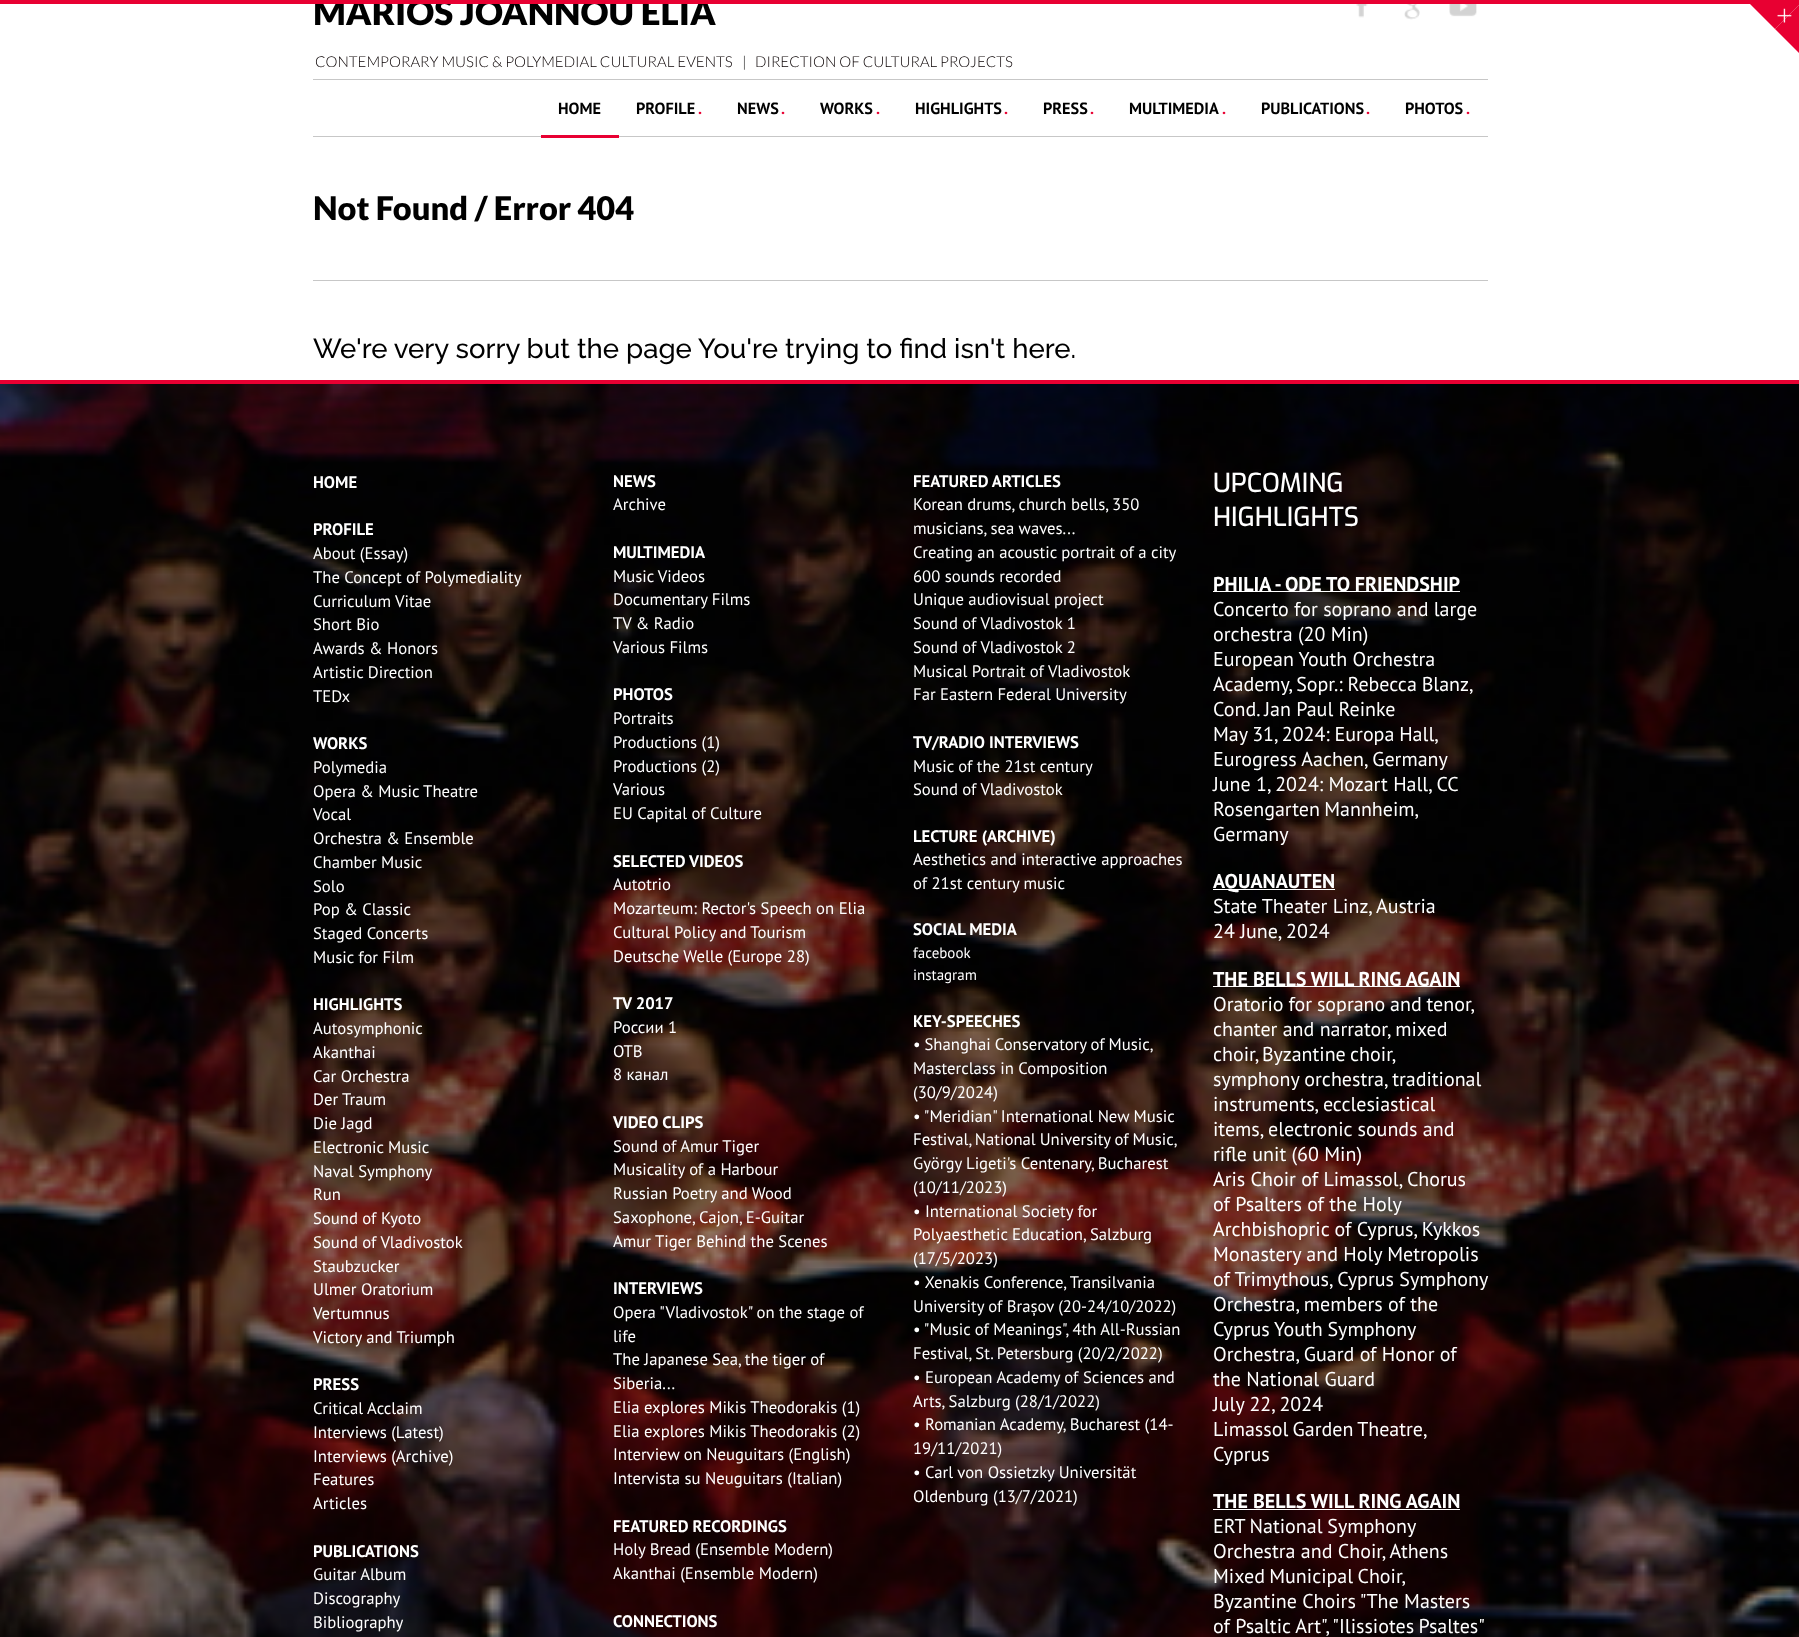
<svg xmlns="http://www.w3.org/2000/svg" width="1799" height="1637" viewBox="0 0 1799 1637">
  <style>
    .t1 { font: 900 35px Lato; fill: #000; }
    .t2 { font: 300 15px Lato; fill: #090002; }
    .t3 { font: 300 15px Lato; fill: #000; }
    .t4 { font: bold 16.25px PT Sans; fill: #000; }
    .t5 { font: bold 16.25px PT Sans; fill: #e80032; }
    .t6 { font: 900 32.5px Lato; fill: #000; }
    .t7 { font: 100 27.5px Raleway; fill: #000; }
    .t8 { font: bold 16.7px PT Sans; fill: #fff; }
    .t9 { font: 16.7px PT Sans; fill: #fff; }
    .t10 { font: 15px PT Sans; fill: #fff; }
    .t11 { font: 500 26.25px Exo; fill: #fff; }
    .t12 { font: bold 20px PT Sans; fill: #fff; }
    .t13 { font: 20px PT Sans; fill: #fff; }
  </style>
  <rect width="100%" height="100%" fill="#fff"/>
  <text x="313" y="25" class="t1">MARIOS JOANNOU ELIA</text>
  <rect x="0" y="0" width="1799" height="4" fill="#e80032"/>
  <path d="M1750 4H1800L1775 29Z" fill="#e80032"/>
  <path d="M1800 4V54L1775 29Z" fill="#e80032"/>
  <image x="1777" y="8" width="15" height="15" href="images/1.png"/>
  <rect x="313" y="79" width="1175" height="1" fill="#c7c7c7"/>
  <text x="315" y="67" class="t2">CONTEMPORARY MUSIC &amp; POLYMEDIAL CULTURAL EVENTS</text>
  <text x="742" y="67" class="t3">|</text>
  <text x="755" y="67" class="t2">DIRECTION OF CULTURAL PROJECTS</text>
  <image x="1356" y="4" width="12" height="14" href="images/2.png"/>
  <image x="1404" y="4" width="16" height="16" href="images/3.png"/>
  <image x="1449" y="4" width="28" height="13" href="images/4.png"/>
  <rect x="313" y="136" width="1175" height="1" fill="#c7c7c7"/>
  <text x="558" y="114" class="t4">HOME</text>
  <text x="636" y="114" class="t4">PROFILE</text>
  <text x="698" y="114" class="t5">.</text>
  <text x="737" y="114" class="t4">NEWS</text>
  <text x="781" y="114" class="t5">.</text>
  <text x="820" y="114" class="t4">WORKS</text>
  <text x="876" y="114" class="t5">.</text>
  <text x="915" y="114" class="t4">HIGHLIGHTS</text>
  <text x="1004" y="114" class="t5">.</text>
  <text x="1043" y="114" class="t4">PRESS</text>
  <text x="1090" y="114" class="t5">.</text>
  <text x="1129" y="114" class="t4">MULTIMEDIA</text>
  <text x="1222" y="114" class="t5">.</text>
  <text x="1261" y="114" class="t4">PUBLICATIONS</text>
  <text x="1366" y="114" class="t5">.</text>
  <text x="1405" y="114" class="t4">PHOTOS</text>
  <text x="1466" y="114" class="t5">.</text>
  <rect x="541" y="135" width="78" height="3" fill="#e80032"/>
  <rect x="313" y="280" width="1175" height="1" fill="#c7c7c7"/>
  <text x="313" y="220" class="t6">Not Found / Error 404</text>
  <text x="313" y="358" class="t7">We're very sorry but the page You're trying to find isn't here.</text>
  <rect x="0" y="380" width="1799" height="4" fill="#e80032"/>
  <image x="0" y="384" width="1799" height="1253" href="images/5.png"/>
  <text x="313" y="488" class="t8">HOME</text>
  <text x="313" y="535" class="t8">PROFILE</text>
  <text x="313" y="559" class="t9">About (Essay)</text>
  <text x="313" y="583" class="t9">The Concept of Polymediality</text>
  <text x="313" y="607" class="t9">Curriculum Vitae</text>
  <text x="313" y="630" class="t9">Short Bio</text>
  <text x="313" y="654" class="t9">Awards &amp; Honors</text>
  <text x="313" y="678" class="t9">Artistic Direction</text>
  <text x="313" y="702" class="t9">TEDx</text>
  <text x="313" y="749" class="t8">WORKS</text>
  <text x="313" y="773" class="t9">Polymedia</text>
  <text x="313" y="797" class="t9">Opera &amp; Music Theatre</text>
  <text x="313" y="820" class="t9">Vocal</text>
  <text x="313" y="844" class="t9">Orchestra &amp; Ensemble</text>
  <text x="313" y="868" class="t9">Chamber Music</text>
  <text x="313" y="892" class="t9">Solo</text>
  <text x="313" y="915" class="t9">Pop &amp; Classic</text>
  <text x="313" y="939" class="t9">Staged Concerts</text>
  <text x="313" y="963" class="t9">Music for Film</text>
  <text x="313" y="1010" class="t8">HIGHLIGHTS</text>
  <text x="313" y="1034" class="t9">Autosymphonic</text>
  <text x="313" y="1058" class="t9">Akanthai</text>
  <text x="313" y="1082" class="t9">Car Orchestra</text>
  <text x="313" y="1105" class="t9">Der Traum</text>
  <text x="313" y="1129" class="t9">Die Jagd</text>
  <text x="313" y="1153" class="t9">Electronic Music</text>
  <text x="313" y="1177" class="t9">Naval Symphony</text>
  <text x="313" y="1200" class="t9">Run</text>
  <text x="313" y="1224" class="t9">Sound of Kyoto</text>
  <text x="313" y="1248" class="t9">Sound of Vladivostok</text>
  <text x="313" y="1272" class="t9">Staubzucker</text>
  <text x="313" y="1295" class="t9">Ulmer Oratorium</text>
  <text x="313" y="1319" class="t9">Vertumnus</text>
  <text x="313" y="1343" class="t9">Victory and Triumph</text>
  <text x="313" y="1390" class="t8">PRESS</text>
  <text x="313" y="1414" class="t9">Critical Acclaim</text>
  <text x="313" y="1438" class="t9">Interviews (Latest)</text>
  <text x="313" y="1462" class="t9">Interviews (Archive)</text>
  <text x="313" y="1485" class="t9">Features</text>
  <text x="313" y="1509" class="t9">Articles</text>
  <text x="313" y="1557" class="t8">PUBLICATIONS</text>
  <text x="313" y="1580" class="t9">Guitar Album</text>
  <text x="313" y="1604" class="t9">Discography</text>
  <text x="313" y="1628" class="t9">Bibliography</text>
  <text x="613" y="487" class="t8">NEWS</text>
  <text x="613" y="510" class="t9">Archive</text>
  <text x="613" y="558" class="t8">MULTIMEDIA</text>
  <text x="613" y="582" class="t9">Music Videos</text>
  <text x="613" y="605" class="t9">Documentary Films</text>
  <text x="613" y="629" class="t9">TV &amp; Radio</text>
  <text x="613" y="653" class="t9">Various Films</text>
  <text x="613" y="700" class="t8">PHOTOS</text>
  <text x="613" y="724" class="t9">Portraits</text>
  <text x="613" y="748" class="t9">Productions (1)</text>
  <text x="613" y="772" class="t9">Productions (2)</text>
  <text x="613" y="795" class="t9">Various</text>
  <text x="613" y="819" class="t9">EU Capital of Culture</text>
  <text x="613" y="867" class="t8">SELECTED VIDEOS</text>
  <text x="613" y="890" class="t9">Autotrio</text>
  <text x="613" y="914" class="t9">Mozarteum: Rector's Speech on Elia</text>
  <text x="613" y="938" class="t9">Cultural Policy and Tourism</text>
  <text x="613" y="962" class="t9">Deutsche Welle (Europe 28)</text>
  <text x="613" y="1009" class="t8">TV 2017</text>
  <text x="613" y="1033" class="t9">России 1</text>
  <text x="613" y="1057" class="t9">OTB</text>
  <text x="613" y="1080" class="t9">8 канал</text>
  <text x="613" y="1128" class="t8">VIDEO CLIPS</text>
  <text x="613" y="1152" class="t9">Sound of Amur Tiger</text>
  <text x="613" y="1175" class="t9">Musicality of a Harbour</text>
  <text x="613" y="1199" class="t9">Russian Poetry and Wood</text>
  <text x="613" y="1223" class="t9">Saxophone, Cajon, E-Guitar</text>
  <text x="613" y="1247" class="t9">Amur Tiger Behind the Scenes</text>
  <text x="613" y="1294" class="t8">INTERVIEWS</text>
  <text x="613" y="1318" class="t9">Opera "Vladivostok" on the stage of</text>
  <text x="613" y="1342" class="t9">life</text>
  <text x="613" y="1365" class="t9">The Japanese Sea, the tiger of</text>
  <text x="613" y="1389" class="t9">Siberia...</text>
  <text x="613" y="1413" class="t9">Elia explores Mikis Theodorakis (1)</text>
  <text x="613" y="1437" class="t9">Elia explores Mikis Theodorakis (2)</text>
  <text x="613" y="1460" class="t9">Interview on Neuguitars (English)</text>
  <text x="613" y="1484" class="t9">Intervista su Neuguitars (Italian)</text>
  <text x="613" y="1532" class="t8">FEATURED RECORDINGS</text>
  <text x="613" y="1555" class="t9">Holy Bread (Ensemble Modern)</text>
  <text x="613" y="1579" class="t9">Akanthai (Ensemble Modern)</text>
  <text x="613" y="1627" class="t8">CONNECTIONS</text>
  <text x="913" y="487" class="t8">FEATURED ARTICLES</text>
  <text x="913" y="510" class="t9">Korean drums, church bells, 350</text>
  <text x="913" y="534" class="t9">musicians, sea waves...</text>
  <text x="913" y="558" class="t9">Creating an acoustic portrait of a city</text>
  <text x="913" y="582" class="t9">600 sounds recorded</text>
  <text x="913" y="605" class="t9">Unique audiovisual project</text>
  <text x="913" y="629" class="t9">Sound of Vladivostok 1</text>
  <text x="913" y="653" class="t9">Sound of Vladivostok 2</text>
  <text x="913" y="677" class="t9">Musical Portrait of Vladivostok</text>
  <text x="913" y="700" class="t9">Far Eastern Federal University</text>
  <text x="913" y="748" class="t8">TV/RADIO INTERVIEWS</text>
  <text x="913" y="772" class="t9">Music of the 21st century</text>
  <text x="913" y="795" class="t9">Sound of Vladivostok</text>
  <text x="913" y="842" class="t8">LECTURE (ARCHIVE)</text>
  <text x="913" y="865" class="t9">Aesthetics and interactive approaches</text>
  <text x="913" y="889" class="t9">of 21st century music</text>
  <text x="913" y="935" class="t8">SOCIAL MEDIA</text>
  <text x="913" y="958" class="t10">facebook</text>
  <text x="913" y="980" class="t10">instagram</text>
  <text x="913" y="1027" class="t8">KEY-SPEECHES</text>
  <text x="913" y="1050" word-spacing="-0.5" class="t9">• Shanghai Conservatory of Music,</text>
  <text x="913" y="1074" class="t9">Masterclass in Composition</text>
  <text x="913" y="1098" class="t9">(30/9/2024)</text>
  <text x="913" y="1122" class="t9">• "Meridian" International New Music</text>
  <text x="913" y="1145" word-spacing="-0.5" class="t9">Festival, National University of Music,</text>
  <text x="913" y="1169" class="t9">György Ligeti's Centenary, Bucharest</text>
  <text x="913" y="1193" class="t9">(10/11/2023)</text>
  <text x="913" y="1217" class="t9">• International Society for</text>
  <text x="913" y="1240" class="t9">Polyaesthetic Education, Salzburg</text>
  <text x="913" y="1264" class="t9">(17/5/2023)</text>
  <text x="913" y="1288" class="t9">• Xenakis Conference, Transilvania</text>
  <text x="913" y="1312" class="t9">University of Brașov (20-24/10/2022)</text>
  <text x="913" y="1335" class="t9">• "Music of Meanings", 4th All-Russian</text>
  <text x="913" y="1359" class="t9">Festival, St. Petersburg (20/2/2022)</text>
  <text x="913" y="1383" class="t9">• European Academy of Sciences and</text>
  <text x="913" y="1407" class="t9">Arts, Salzburg (28/1/2022)</text>
  <text x="913" y="1430" class="t9">• Romanian Academy, Bucharest (14-</text>
  <text x="913" y="1454" class="t9">19/11/2021)</text>
  <text x="913" y="1478" class="t9">• Carl von Ossietzky Universität</text>
  <text x="913" y="1502" class="t9">Oldenburg (13/7/2021)</text>
  <text x="1213" y="492" class="t11">UPCOMING</text>
  <text x="1213" y="526" class="t11">HIGHLIGHTS</text>
  <rect x="1213" y="591" width="247" height="1" fill="#fff"/>
  <text x="1213" y="591" class="t12">PHILIA - ODE TO FRIENDSHIP</text>
  <text x="1213" y="616" class="t13">Concerto for soprano and large</text>
  <text x="1213" y="641" class="t13">orchestra (20 Min)</text>
  <text x="1213" y="666" class="t13">European Youth Orchestra</text>
  <text x="1213" y="691" word-spacing="-0.5" class="t13">Academy, Sopr.: Rebecca Blanz,</text>
  <text x="1213" y="716" class="t13">Cond. Jan Paul Reinke</text>
  <text x="1213" y="741" word-spacing="-0.5" class="t13">May 31, 2024: Europa Hall,</text>
  <text x="1213" y="766" class="t13">Eurogress Aachen, Germany</text>
  <text x="1213" y="791" class="t13">June 1, 2024: Mozart Hall, CC</text>
  <text x="1213" y="816" word-spacing="-1" class="t13">Rosengarten Mannheim,</text>
  <text x="1213" y="841" class="t13">Germany</text>
  <rect x="1213" y="889" width="122" height="1" fill="#fff"/>
  <text x="1213" y="888" class="t12">AQUANAUTEN</text>
  <text x="1213" y="913" class="t13">State Theater Linz, Austria</text>
  <text x="1213" y="938" class="t13">24 June, 2024</text>
  <rect x="1213" y="986" width="247" height="1" fill="#fff"/>
  <text x="1213" y="986" class="t12">THE BELLS WILL RING AGAIN</text>
  <text x="1213" y="1011" word-spacing="-0.5" class="t13">Oratorio for soprano and tenor,</text>
  <text x="1213" y="1036" class="t13">chanter and narrator, mixed</text>
  <text x="1213" y="1061" word-spacing="-1" class="t13">choir, Byzantine choir,</text>
  <text x="1213" y="1086" class="t13">symphony orchestra, traditional</text>
  <text x="1213" y="1111" class="t13">instruments, ecclesiastical</text>
  <text x="1213" y="1136" class="t13">items, electronic sounds and</text>
  <text x="1213" y="1161" class="t13">rifle unit (60 Min)</text>
  <text x="1213" y="1186" class="t13">Aris Choir of Limassol, Chorus</text>
  <text x="1213" y="1211" class="t13">of Psalters of the Holy</text>
  <text x="1213" y="1236" class="t13">Archbishopric of Cyprus, Kykkos</text>
  <text x="1213" y="1261" class="t13">Monastery and Holy Metropolis</text>
  <text x="1213" y="1286" class="t13">of Trimythous, Cyprus Symphony</text>
  <text x="1213" y="1311" class="t13">Orchestra, members of the</text>
  <text x="1213" y="1336" word-spacing="-0.5" class="t13">Cyprus Youth Symphony</text>
  <text x="1213" y="1361" class="t13">Orchestra, Guard of Honor of</text>
  <text x="1213" y="1386" class="t13">the National Guard</text>
  <text x="1213" y="1411" class="t13">July 22, 2024</text>
  <text x="1213" y="1436" word-spacing="-1" class="t13">Limassol Garden Theatre,</text>
  <text x="1213" y="1461" class="t13">Cyprus</text>
  <text x="1213" y="1508" class="t12">THE BELLS WILL RING AGAIN</text>
  <rect x="1213" y="1509" width="247" height="1" fill="#fff"/>
  <text x="1213" y="1533" word-spacing="-0.5" class="t13">ERT National Symphony</text>
  <text x="1213" y="1558" class="t13">Orchestra and Choir, Athens</text>
  <text x="1213" y="1583" word-spacing="-1" class="t13">Mixed Municipal Choir,</text>
  <text x="1213" y="1608" class="t13">Byzantine Choirs "The Masters</text>
  <text x="1213" y="1633" class="t13">of Psaltic Art", "</text>
  <text x="1339" y="1633" word-spacing="-1" class="t13">Ilissiotes Psaltes"</text>
</svg>
